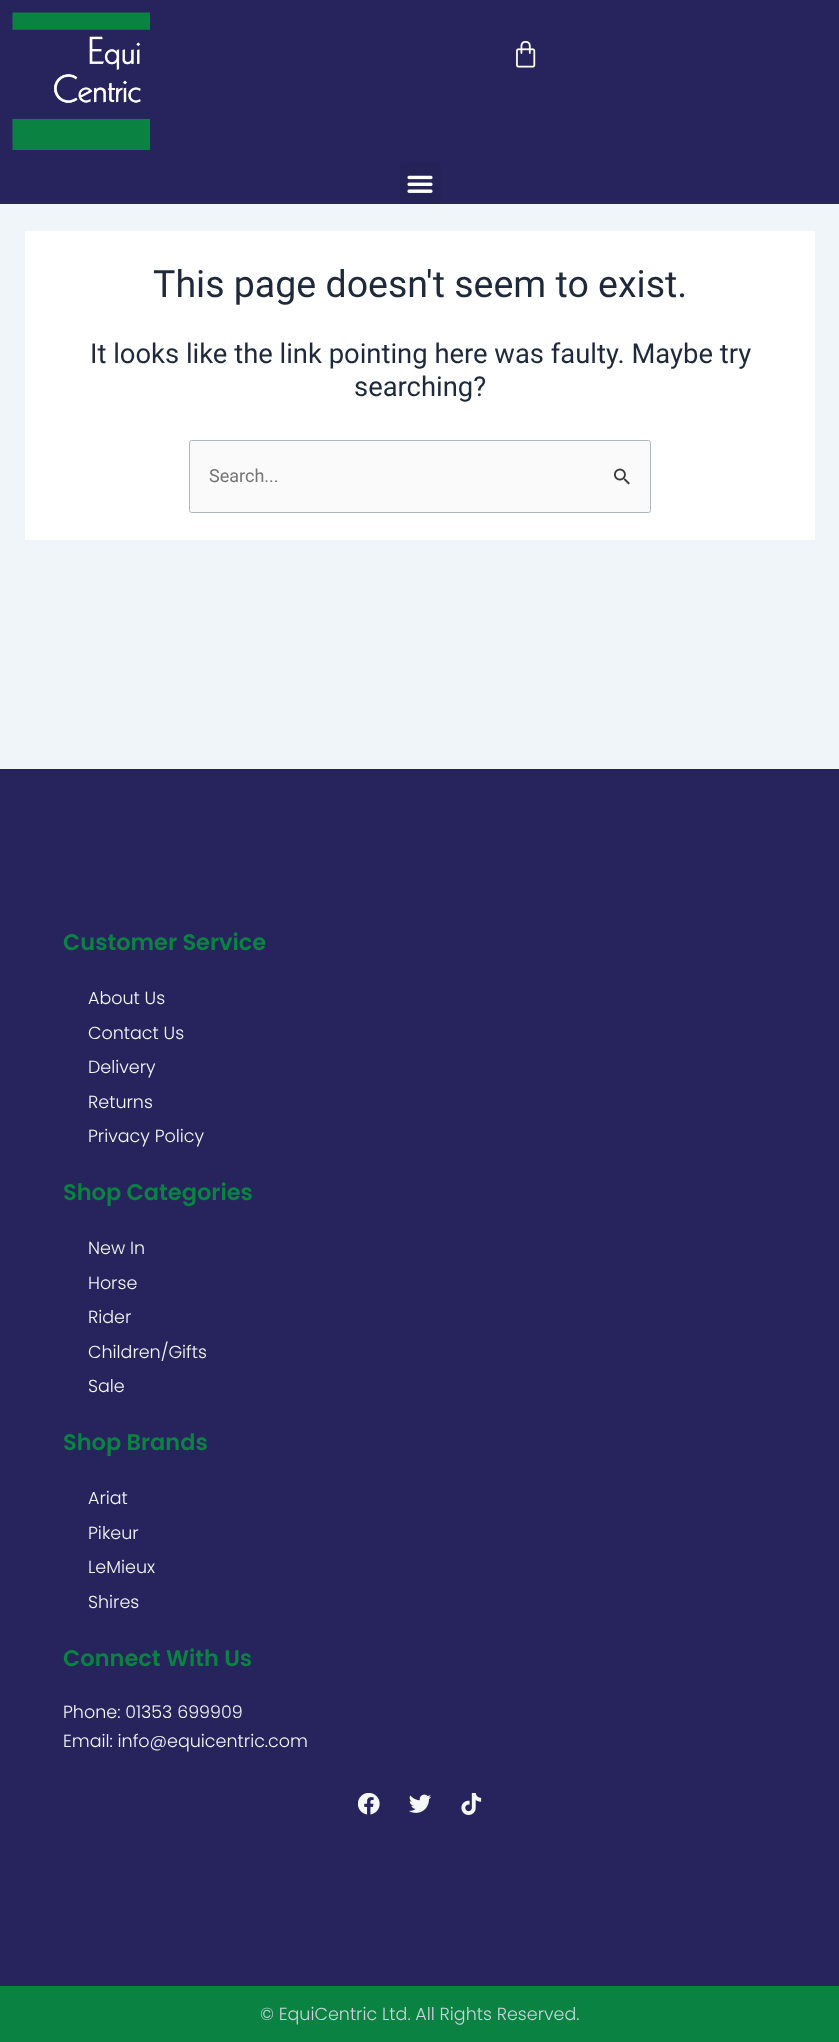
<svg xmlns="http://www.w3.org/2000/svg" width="839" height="2042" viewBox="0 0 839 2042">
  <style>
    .t1 { font: 37.5px Roboto; fill: #1e293b; }
    .t2 { font: 27.4px Roboto; fill: #1e293b; }
    .t3 { font: 18px Roboto; fill: #757575; }
    .t4 { font: 600 22.5px Poppins; fill: #0a8242; }
    .t5 { font: 300 17.5px Poppins; fill: #f5f7f9; }
    .t6 { font: 300 17.5px Poppins; fill: #c8d5dc; }
  </style>
  <rect width="100%" height="100%" fill="#f0f5fa"/>
  <rect x="0" y="0" width="839" height="204" fill="#27245d"/>
  <image x="12" y="12" width="138" height="138" href="images/1.png"/>
  <image x="516" y="40" width="20" height="28" href="images/2.png"/>
  <rect x="400" y="163" width="41" height="41" rx="4" fill="#252258"/>
  <image x="407" y="175" width="26" height="18" href="images/3.png"/>
  <rect x="25" y="231" width="790" height="309" fill="#fff"/>
  <text x="153" y="297" class="t1">This page doesn't seem to exist.</text>
  <text x="90" y="363" class="t2">It looks like the link pointing here was faulty. Maybe try</text>
  <text x="354" y="396" class="t2">searching?</text>
  <rect x="189.5" y="440.5" width="461" height="72" rx="2" fill="#fafafa" stroke="#adb6be"/>
  <text x="209" y="482" class="t3">Search...</text>
  <image x="614" y="468" width="16" height="17" href="images/4.png"/>
  <rect x="0" y="769" width="839" height="1217" fill="#27245d"/>
  <text x="63" y="950" class="t4">Customer Service</text>
  <text x="88" y="1004" class="t5">About Us</text>
  <text x="88" y="1039" class="t5">Contact Us</text>
  <text x="88" y="1073" class="t5">Delivery</text>
  <text x="88" y="1108" class="t5">Returns</text>
  <text x="88" y="1142" class="t5">Privacy Policy</text>
  <text x="63" y="1200" class="t4">Shop Categories</text>
  <text x="88" y="1254" class="t5">New In</text>
  <text x="88" y="1289" class="t5">Horse</text>
  <text x="88" y="1323" class="t5">Rider</text>
  <text x="88" y="1358" class="t5">Children/Gifts</text>
  <text x="88" y="1392" class="t5">Sale</text>
  <text x="63" y="1450" class="t4">Shop Brands</text>
  <text x="88" y="1504" class="t5">Ariat</text>
  <text x="88" y="1539" class="t5">Pikeur</text>
  <text x="88" y="1573" class="t5">LeMieux</text>
  <text x="88" y="1608" class="t5">Shires</text>
  <text x="63" y="1666" class="t4">Connect With Us</text>
  <text x="63" y="1718" class="t5">Phone: 01353 699909</text>
  <text x="63" y="1747" class="t5">Email: info@equicentric.com</text>
  <image x="358" y="1793" width="22" height="22" href="images/5.png"/>
  <image x="409" y="1794" width="22" height="19" href="images/6.png"/>
  <image x="461" y="1793" width="21" height="22" href="images/7.png"/>
  <rect x="0" y="1986" width="839" height="56" fill="#0a8242"/>
  <text x="260" y="2020" class="t6">© EquiCentric Ltd. All Rights Reserved.</text>
</svg>
